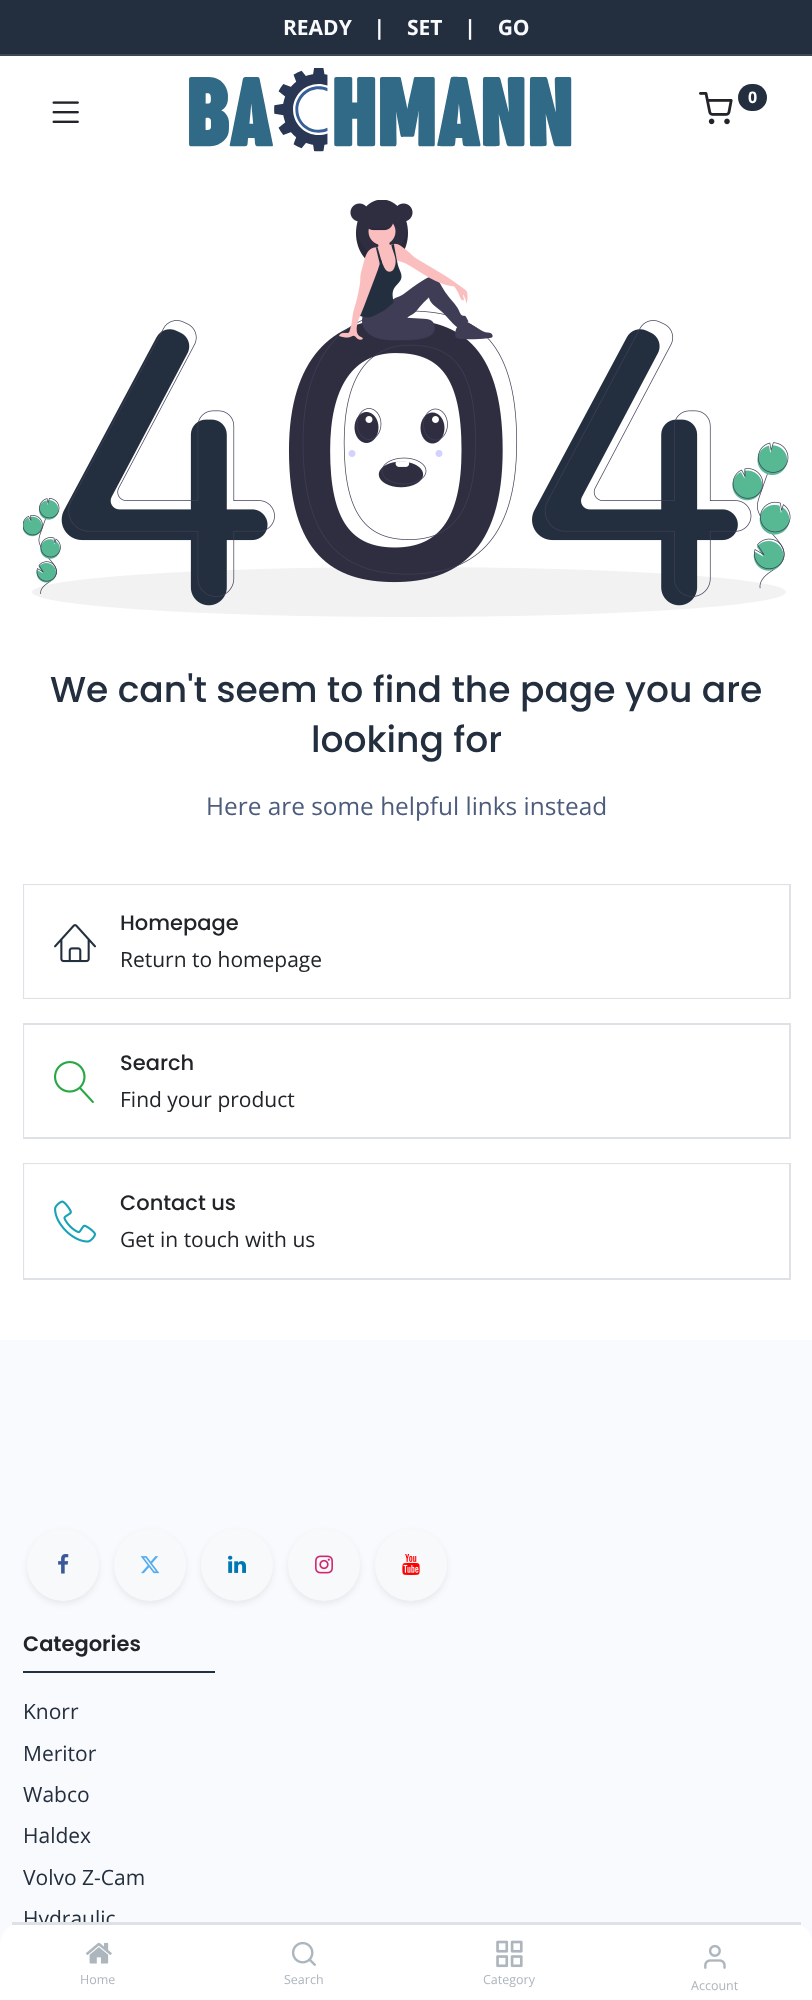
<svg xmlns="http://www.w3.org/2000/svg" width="812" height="2000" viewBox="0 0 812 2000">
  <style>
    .t1 { font: bold 21px Open Sans; fill: #f9fafe; }
    .t2 { font: bold 16px Open Sans; fill: #fff; }
    .t3 { font: 500 36.1px Poppins; fill: #232f3e; }
    .t4 { font: 24.4px Open Sans; fill: #4d5b7c; }
    .t5 { font: 500 21px Poppins; fill: #212529; }
    .t6 { font: 21px Open Sans; fill: #212529; }
    .t7 { font: 600 21px Poppins; fill: #212529; }
    .t8 { font: 21px Open Sans; fill: #232f3e; }
    .t9 { font: 12.5px Open Sans; fill: #adb5bd; }
  </style>
  <rect width="100%" height="100%" fill="#fff"/>
  <rect x="0" y="0" width="812" height="54" fill="#232f3e"/>
  <rect x="0" y="54" width="812" height="2" fill="#3d4855"/>
  <text x="283" y="35" class="t1" xml:space="preserve">READY    |    SET    |    GO</text>
  <image x="189" y="68" width="383" height="84" href="images/1.png"/>
  <image x="699" y="92" width="34" height="33" href="images/2.png"/>
  <rect x="738" y="84" width="29" height="27" rx="13.5" fill="#232f3e"/>
  <text x="748" y="103" class="t2">0</text>
  <image x="52" y="101" width="27" height="22" href="images/3.png"/>
  <image x="23" y="200" width="768" height="417" href="images/4.png"/>
  <text x="50" y="702" class="t3">We can't seem to find the page you are</text>
  <text x="311" y="752" class="t3">looking for</text>
  <text x="206" y="815" class="t4">Here are some helpful links instead</text>
  <rect x="24" y="885" width="766" height="113" fill="none" stroke="#dee2e6" stroke-width="2"/>
  <rect x="24" y="885" width="765" height="113" fill="#ffffffe6"/>
  <image x="54" y="924" width="42" height="39" href="images/5.png"/>
  <text x="120" y="930" class="t5">Homepage</text>
  <text x="120" y="967" class="t6">Return to homepage</text>
  <rect x="24" y="1024" width="766" height="114" fill="none" stroke="#dee2e6" stroke-width="2"/>
  <rect x="24" y="1025" width="1" height="112" fill="#ffffffe6"/>
  <image x="54" y="1061" width="40" height="42" href="images/6.png"/>
  <text x="120" y="1070" class="t5">Search</text>
  <text x="120" y="1107" class="t6">Find your product</text>
  <rect x="24" y="1164" width="766" height="115" fill="none" stroke="#dee2e6" stroke-width="2"/>
  <rect x="24" y="1164" width="765" height="114" fill="#ffffffe6"/>
  <image x="54" y="1200" width="42" height="43" href="images/7.png"/>
  <text x="120" y="1210" class="t5">Contact us</text>
  <text x="120" y="1247" class="t6">Get in touch with us</text>
  <rect x="0" y="1340" width="812" height="606" fill="#f9fafe"/>
  <rect x="27" y="1532" width="72" height="72" rx="36" fill="#00000012" filter="blur(3px)"/>
  <circle cx="63" cy="1565" r="36" fill="#f8f9fa"/>
  <image x="58" y="1554" width="11" height="20" href="images/8.png"/>
  <rect x="114" y="1532" width="72" height="72" rx="36" fill="#00000012" filter="blur(3px)"/>
  <circle cx="150" cy="1565" r="36" fill="#f8f9fa"/>
  <image x="140" y="1556" width="20" height="18" href="images/9.png"/>
  <rect x="201" y="1532" width="72" height="72" rx="36" fill="#00000012" filter="blur(3px)"/>
  <circle cx="237" cy="1565" r="36" fill="#f8f9fa"/>
  <image x="228" y="1555" width="18" height="18" href="images/10.png"/>
  <rect x="288" y="1532" width="72" height="72" rx="36" fill="#00000012" filter="blur(3px)"/>
  <circle cx="324" cy="1565" r="36" fill="#f8f9fa"/>
  <image x="315" y="1555" width="18" height="19" href="images/11.png"/>
  <rect x="375" y="1532" width="72" height="72" rx="36" fill="#00000012" filter="blur(3px)"/>
  <circle cx="411" cy="1565" r="36" fill="#f8f9fa"/>
  <image x="402" y="1554" width="18" height="21" href="images/12.png"/>
  <text x="23" y="1651" class="t7">Categories</text>
  <rect x="23" y="1671" width="192" height="2" fill="#232f3e"/>
  <text x="23" y="1719" class="t8">Knorr</text>
  <text x="23" y="1761" class="t8">Meritor</text>
  <text x="23" y="1802" class="t8">Wabco</text>
  <text x="23" y="1843" class="t8">Haldex</text>
  <text x="23" y="1885" class="t8">Volvo Z-Cam</text>
  <text x="23" y="1926" class="t8">Hydraulic</text>
  <path d="M24 1922H789C802.5 1922 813 1932.5 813 1946V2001H0V1946C0 1932.5 10.5 1922 24 1922Z" fill="#fff"/>
  <rect x="12" y="1922" width="789" height="3" fill="#dee2e6"/>
  <image x="86" y="1942" width="26" height="22" href="images/13.png"/>
  <text x="80" y="1984" class="t9">Home</text>
  <image x="291" y="1941" width="25" height="25" href="images/14.png"/>
  <text x="284" y="1984" class="t9">Search</text>
  <image x="496" y="1940" width="27" height="28" href="images/15.png"/>
  <text x="483" y="1984" class="t9">Category</text>
  <image x="704" y="1944" width="22" height="25" href="images/16.png"/>
  <text x="691" y="1990" class="t9">Account</text>
</svg>
